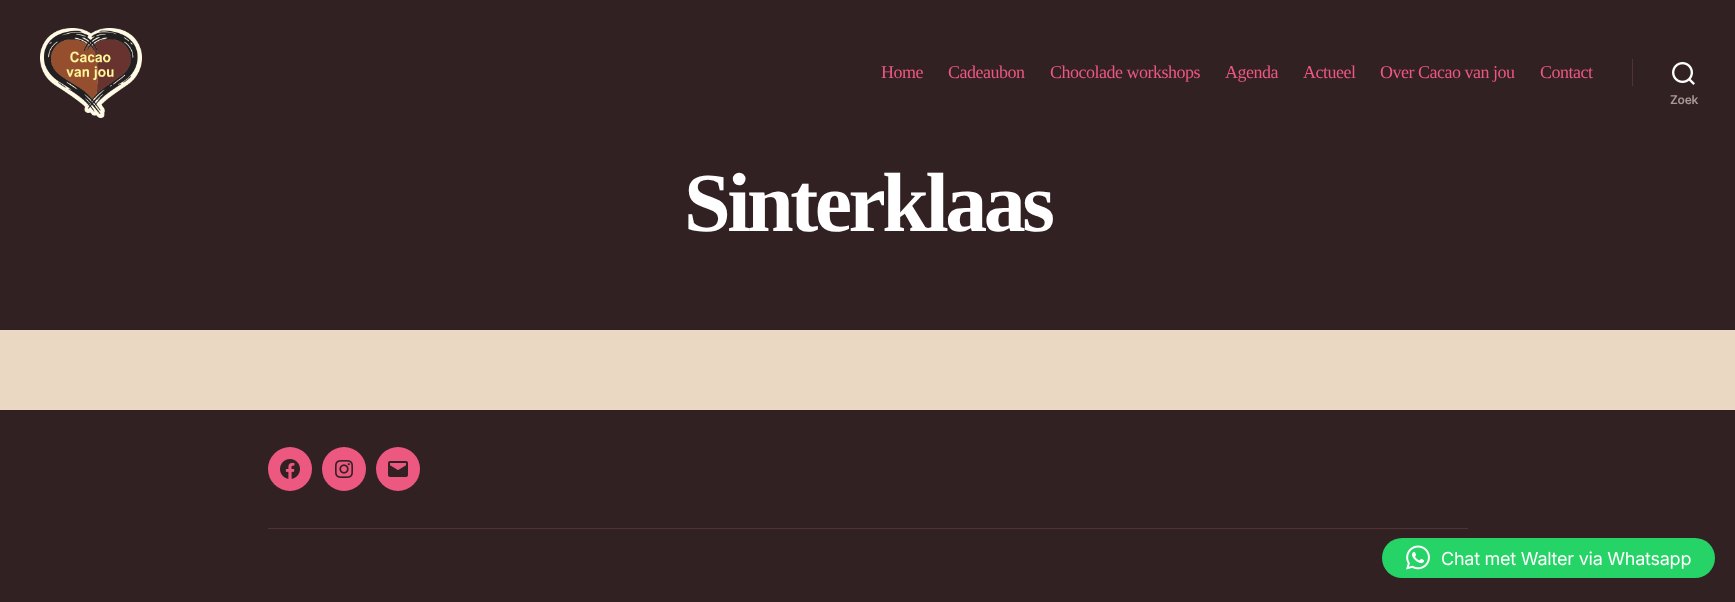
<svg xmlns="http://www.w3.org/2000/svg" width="1735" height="602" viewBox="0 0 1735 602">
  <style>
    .t1 { font: 18px Liberation Serif; letter-spacing: -0.5px; fill: #ed5880; }
    .t2 { font: 600 12px Inter; letter-spacing: -0.25px; fill: #aa9797; }
    .t3 { font: bold 84px Liberation Serif; letter-spacing: -3.5px; fill: #fff; }
    .t4 { font: 18px Inter; letter-spacing: -0.25px; fill: #fff; }
  </style>
  <rect width="100%" height="100%" fill="#ead8c2"/>
  <rect x="0" y="0" width="1735" height="330" fill="#322122"/>
  <image x="40" y="28" width="102" height="90" href="images/1.png"/>
  <text x="881" y="78" class="t1">Home</text>
  <text x="948" y="78" class="t1">Cadeaubon</text>
  <text x="1050" y="78" class="t1">Chocolade workshops</text>
  <text x="1225" y="78" class="t1">Agenda</text>
  <text x="1303" y="78" class="t1">Actueel</text>
  <text x="1380" y="78" class="t1">Over Cacao van jou</text>
  <text x="1540" y="78" class="t1">Contact</text>
  <rect x="1632" y="59" width="1" height="27" fill="#503435"/>
  <image x="1672" y="62" width="23" height="23" href="images/2.png"/>
  <text x="1670" y="104" class="t2">Zoek</text>
  <text x="684" y="231" class="t3">Sinterklaas</text>
  <rect x="0" y="410" width="1735" height="192" fill="#322122"/>
  <rect x="268" y="528" width="1200" height="1" fill="#503435"/>
  <circle cx="290" cy="469" r="22" fill="#ed5880"/>
  <image x="280" y="459" width="20" height="20" href="images/3.png"/>
  <circle cx="344" cy="469" r="22" fill="#ed5880"/>
  <image x="335" y="460" width="18" height="18" href="images/4.png"/>
  <circle cx="398" cy="469" r="22" fill="#ed5880"/>
  <image x="388" y="461" width="20" height="16" href="images/5.png"/>
  <rect x="1382" y="538" width="333" height="40" rx="20" fill="#25d366"/>
  <image x="1406" y="545" width="24" height="25" href="images/6.png"/>
  <text x="1441" y="565" class="t4">Chat met Walter via Whatsapp</text>
</svg>
